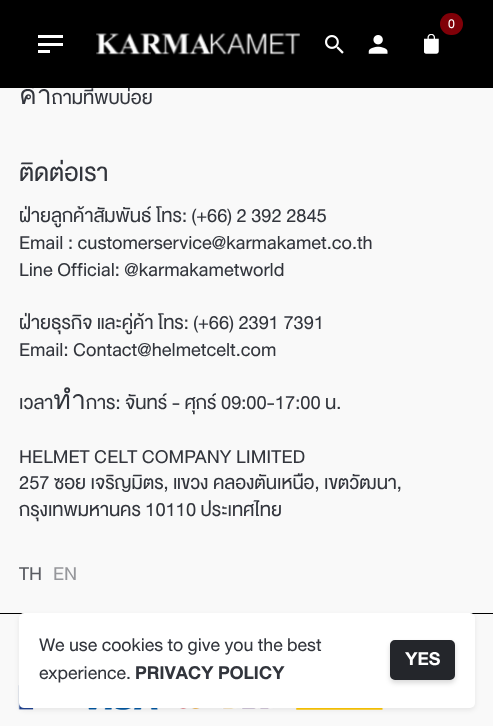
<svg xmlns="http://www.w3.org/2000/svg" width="493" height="726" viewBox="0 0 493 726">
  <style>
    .t1 { font: 26.7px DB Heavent; fill: #32353c; }
    .t2 { font: 18px DB Heavent; fill: #fff; }
    .t3 { font: 35px DB Heavent; fill: #32353c; }
    .t4 { font: 26.7px DB Heavent; fill: #5a5c62; }
    .t5 { font: 26.7px DB Heavent; fill: #96979b; }
    .t6 { font: 26.1px DB Heavent; fill: #32353c; }
    .t7 { font: bold 26.1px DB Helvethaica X; fill: #32353c; }
    .t8 { font: bold 26.1px DB Helvethaica X; fill: #fff; }
  </style>
  <rect width="100%" height="100%" fill="#f9f9f9"/>
  <text x="19" y="104" class="t1">คำถามที่พบบ่อย</text>
  <rect x="0" y="0" width="493" height="88" fill="#000"/>
  <rect x="440" y="13" width="23" height="22" rx="11" fill="#800008"/>
  <text x="448" y="28" class="t2">0</text>
  <image x="424" y="34" width="15" height="20" href="images/1.png"/>
  <image x="325" y="35" width="19" height="19" href="images/2.png"/>
  <image x="368" y="35" width="20" height="19" href="images/3.png"/>
  <rect x="38" y="35" width="25" height="3" fill="#fff"/>
  <rect x="38" y="43" width="25" height="3" fill="#fff"/>
  <rect x="38" y="50" width="12" height="3" fill="#fff"/>
  <image x="96" y="33" width="204" height="22" href="images/4.png"/>
  <text x="19" y="181" class="t3">ติดต่อเรา</text>
  <text x="19" y="222" class="t1">ฝ่ายลูกค้าสัมพันธ์ โทร: (+66) 2 392 2845</text>
  <text x="19" y="249" class="t1">Email : customerservice@karmakamet.co.th</text>
  <text x="19" y="276" class="t1">Line Official: @karmakametworld</text>
  <text x="19" y="329" class="t1">ฝ่ายธุรกิจ และคู่ค้า โทร: (+66) 2391 7391</text>
  <text x="19" y="356" class="t1">Email: Contact@helmetcelt.com</text>
  <text x="19" y="409" class="t1">เวลาทำการ: จันทร์ - ศุกร์ 09:00-17:00 น.</text>
  <text x="19" y="463" class="t1">HELMET CELT COMPANY LIMITED</text>
  <text x="19" y="489" class="t1">257 ซอย เจริญมิตร, แขวง คลองตันเหนือ, เขตวัฒนา,</text>
  <text x="19" y="516" class="t1">กรุงเทพมหานคร 10110 ประเทศไทย</text>
  <text x="19" y="580" class="t4">TH</text>
  <text x="53" y="580" class="t5">EN</text>
  <rect x="0" y="613" width="493" height="1" fill="#000"/>
  <image x="18" y="685" width="16" height="25" href="images/5.png"/>
  <image x="88" y="708" width="70" height="2" href="images/6.png"/>
  <image x="180" y="708" width="20" height="1" href="images/7.png"/>
  <image x="222" y="708" width="52" height="1" href="images/8.png"/>
  <image x="296" y="708" width="87" height="2" href="images/9.png"/>
  <rect x="19" y="615" width="456" height="95" rx="5" fill="#00000014" filter="blur(2.5px)"/>
  <rect x="19" y="613" width="456" height="95" rx="5" fill="#fff"/>
  <text x="39" y="651" class="t6">We use cookies to give you the best</text>
  <text x="39" y="679" class="t6">experience.</text>
  <text x="135" y="679" class="t7">PRIVACY POLICY</text>
  <rect x="390" y="643" width="65" height="40" rx="5" fill="#00000026" filter="blur(2.5px)"/>
  <rect x="391.5" y="641.5" width="62" height="37" rx="3.5" fill="#24262b" stroke="#24262b" stroke-width="3"/>
  <text x="405" y="665" class="t8">YES</text>
</svg>
